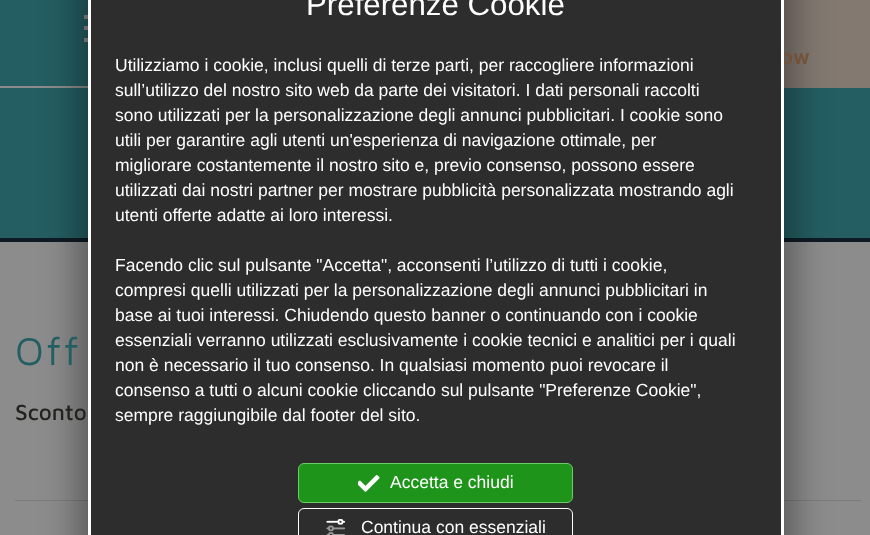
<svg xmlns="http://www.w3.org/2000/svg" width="870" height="535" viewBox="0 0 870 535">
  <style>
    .t1 { font: bold 16px Maven Pro; letter-spacing: 1px; fill: #725238; }
    .t2 { font: 31.25px Liberation Sans; fill: #fff; }
    .t3 { font: 17.5px Liberation Sans; fill: #fff; }
    .t4 { font: 40px Maven Pro; letter-spacing: 2.5px; fill: #235e62; }
    .t5 { font: 500 22.5px Maven Pro; fill: #22221f; }
  </style>
  <rect width="100%" height="100%" fill="#8c8c8c"/>
  <rect x="0" y="88" width="870" height="150" fill="#245e62"/>
  <rect x="0" y="238" width="870" height="4" fill="#0e1b25"/>
  <rect x="0" y="0" width="88" height="86" fill="#245e62"/>
  <rect x="84" y="15" width="4" height="4" fill="#8c8c8c"/>
  <rect x="84" y="26" width="4" height="4" fill="#8c8c8c"/>
  <rect x="84" y="38" width="4" height="4" fill="#8c8c8c"/>
  <rect x="784" y="0" width="86" height="88" fill="#837971"/>
  <rect x="15" y="500" width="846" height="1" fill="#7c7c7c"/>
  <rect x="79" y="-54" width="714" height="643" fill="#00000061" filter="blur(18px)"/>
  <text x="781" y="64" class="t1">OW</text>
  <rect x="89.5" y="-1.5" width="693" height="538" fill="#2d2d2d" stroke="#fff" stroke-width="3"/>
  <text x="306" y="15" class="t2">Preferenze Cookie</text>
  <text x="115" y="71" class="t3">Utilizziamo i cookie, inclusi quelli di terze parti, per raccogliere informazioni</text>
  <text x="115" y="96" class="t3">sull’utilizzo del nostro sito web da parte dei visitatori. I dati personali raccolti</text>
  <text x="115" y="121" class="t3">sono utilizzati per la personalizzazione degli annunci pubblicitari. I cookie sono</text>
  <text x="115" y="146" class="t3">utili per garantire agli utenti un'esperienza di navigazione ottimale, per</text>
  <text x="115" y="171" class="t3">migliorare costantemente il nostro sito e, previo consenso, possono essere</text>
  <text x="115" y="196" class="t3">utilizzati dai nostri partner per mostrare pubblicità personalizzata mostrando agli</text>
  <text x="115" y="221" class="t3">utenti offerte adatte ai loro interessi.</text>
  <text x="115" y="271" class="t3">Facendo clic sul pulsante "Accetta", acconsenti l’utilizzo di tutti i cookie,</text>
  <text x="115" y="296" class="t3">compresi quelli utilizzati per la personalizzazione degli annunci pubblicitari in</text>
  <text x="115" y="321" class="t3">base ai tuoi interessi. Chiudendo questo banner o continuando con i cookie</text>
  <text x="115" y="346" class="t3">essenziali verranno utilizzati esclusivamente i cookie tecnici e analitici per i quali</text>
  <text x="115" y="371" class="t3">non è necessario il tuo consenso. In qualsiasi momento puoi revocare il</text>
  <text x="115" y="396" class="t3">consenso a tutti o alcuni cookie cliccando sul pulsante "Preferenze Cookie",</text>
  <text x="115" y="421" class="t3">sempre raggiungibile dal footer del sito.</text>
  <rect x="298.5" y="463.5" width="274" height="39" rx="5.5" fill="#1e941a" stroke="#6cca69"/>
  <image x="358" y="475" width="22" height="17" href="images/1.png"/>
  <text x="390" y="488" class="t3">Accetta e chiudi</text>
  <rect x="298.5" y="508.5" width="274" height="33" rx="5.5" fill="none" stroke="#fff"/>
  <image x="326" y="519" width="20" height="16" href="images/2.png"/>
  <text x="361" y="533" class="t3">Continua con essenziali</text>
  <text x="15" y="365" class="t4">Off</text>
  <text x="15" y="420" class="t5">Sconto</text>
</svg>
